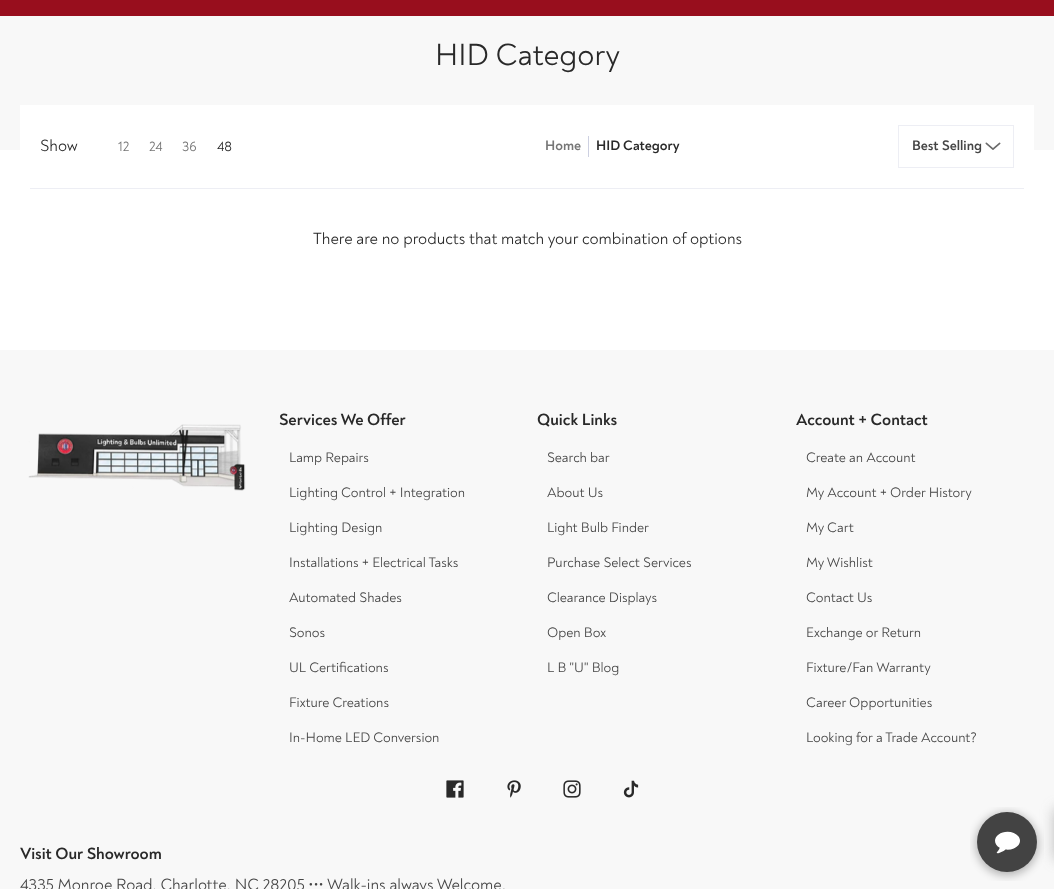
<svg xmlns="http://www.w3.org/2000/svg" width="1054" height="889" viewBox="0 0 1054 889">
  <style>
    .t1 { font: 31.25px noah; fill: #292929; }
    .t2 { font: 16.55px noah; fill: #292929; }
    .t3 { font: 14px noah; fill: #767676; }
    .t4 { font: 14px noah; fill: #292929; }
    .t5 { font: bold 14px noah; fill: #767676; }
    .t6 { font: bold 14px noah; fill: #292929; }
    .t7 { font: bold 14px noah; fill: #454545; }
    .t8 { font: bold 16.55px noah; fill: #292929; }
    .t9 { font: 14px noah; fill: #454545; }
    .t10 { font: 16.55px noah; fill: #454545; }
  </style>
  <rect width="100%" height="100%" fill="#fff"/>
  <rect x="0" y="0" width="1054" height="16" fill="#980e1d"/>
  <rect x="0" y="16" width="1054" height="134" fill="#f8f8f8"/>
  <text x="435" y="65" class="t1">HID Category</text>
  <rect x="20" y="105" width="1014" height="45" fill="#fff"/>
  <rect x="30" y="188" width="994" height="1" fill="#edeef4"/>
  <text x="40" y="151" class="t2">Show</text>
  <text x="118" y="151" class="t3">12</text>
  <text x="149" y="151" class="t3">24</text>
  <text x="182" y="151" class="t3">36</text>
  <text x="217" y="151" class="t4">48</text>
  <text x="545" y="150" class="t5">Home</text>
  <rect x="588" y="136" width="1" height="21" fill="#cdd0e1"/>
  <text x="596" y="150" class="t6">HID Category</text>
  <image x="985" y="142" width="16" height="8" href="images/1.png"/>
  <rect x="898.5" y="125.5" width="115" height="42" fill="none" stroke="#edeef4"/>
  <text x="912" y="150" class="t7">Best Selling</text>
  <text x="313" y="244" class="t2">There are no products that match your combination of options</text>
  <rect x="0" y="350" width="1054" height="539" fill="#f8f8f8"/>
  <image x="28" y="424" width="218" height="67" href="images/2.png"/>
  <text x="279" y="425" class="t8">Services We Offer</text>
  <text x="289" y="462" class="t9">Lamp Repairs</text>
  <text x="289" y="497" class="t9">Lighting Control + Integration</text>
  <text x="289" y="532" class="t9">Lighting Design</text>
  <text x="289" y="567" class="t9">Installations + Electrical Tasks</text>
  <text x="289" y="602" class="t9">Automated Shades</text>
  <text x="289" y="637" class="t9">Sonos</text>
  <text x="289" y="672" class="t9">UL Certifications</text>
  <text x="289" y="707" class="t9">Fixture Creations</text>
  <text x="289" y="742" class="t9">In-Home LED Conversion</text>
  <text x="537" y="425" class="t8">Quick Links</text>
  <text x="547" y="462" class="t9">Search bar</text>
  <text x="547" y="497" class="t9">About Us</text>
  <text x="547" y="532" class="t9">Light Bulb Finder</text>
  <text x="547" y="567" class="t9">Purchase Select Services</text>
  <text x="547" y="602" class="t9">Clearance Displays</text>
  <text x="547" y="637" class="t9">Open Box</text>
  <text x="547" y="672" class="t9">L B "U" Blog</text>
  <text x="796" y="425" class="t8">Account + Contact</text>
  <text x="806" y="462" class="t9">Create an Account</text>
  <text x="806" y="497" class="t9">My Account + Order History</text>
  <text x="806" y="532" class="t9">My Cart</text>
  <text x="806" y="567" class="t9">My Wishlist</text>
  <text x="806" y="602" class="t9">Contact Us</text>
  <text x="806" y="637" class="t9">Exchange or Return</text>
  <text x="806" y="672" class="t9">Fixture/Fan Warranty</text>
  <text x="806" y="707" class="t9">Career Opportunities</text>
  <text x="806" y="742" class="t9">Looking for a Trade Account?</text>
  <image x="446" y="780" width="18" height="18" href="images/3.png"/>
  <image x="507" y="780" width="14" height="18" href="images/4.png"/>
  <image x="563" y="780" width="18" height="18" href="images/5.png"/>
  <image x="623" y="780" width="16" height="18" href="images/6.png"/>
  <text x="20" y="859" class="t8">Visit Our Showroom</text>
  <text x="20" y="890" class="t10">4335 Monroe Road, Charlotte, NC 28205 ••• Walk-ins always Welcome.</text>
  <rect x="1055" y="809" width="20" height="50" fill="#75757580" filter="blur(7px)"/>
  <image x="970" y="807" width="74" height="74" href="images/7.png"/>
</svg>
